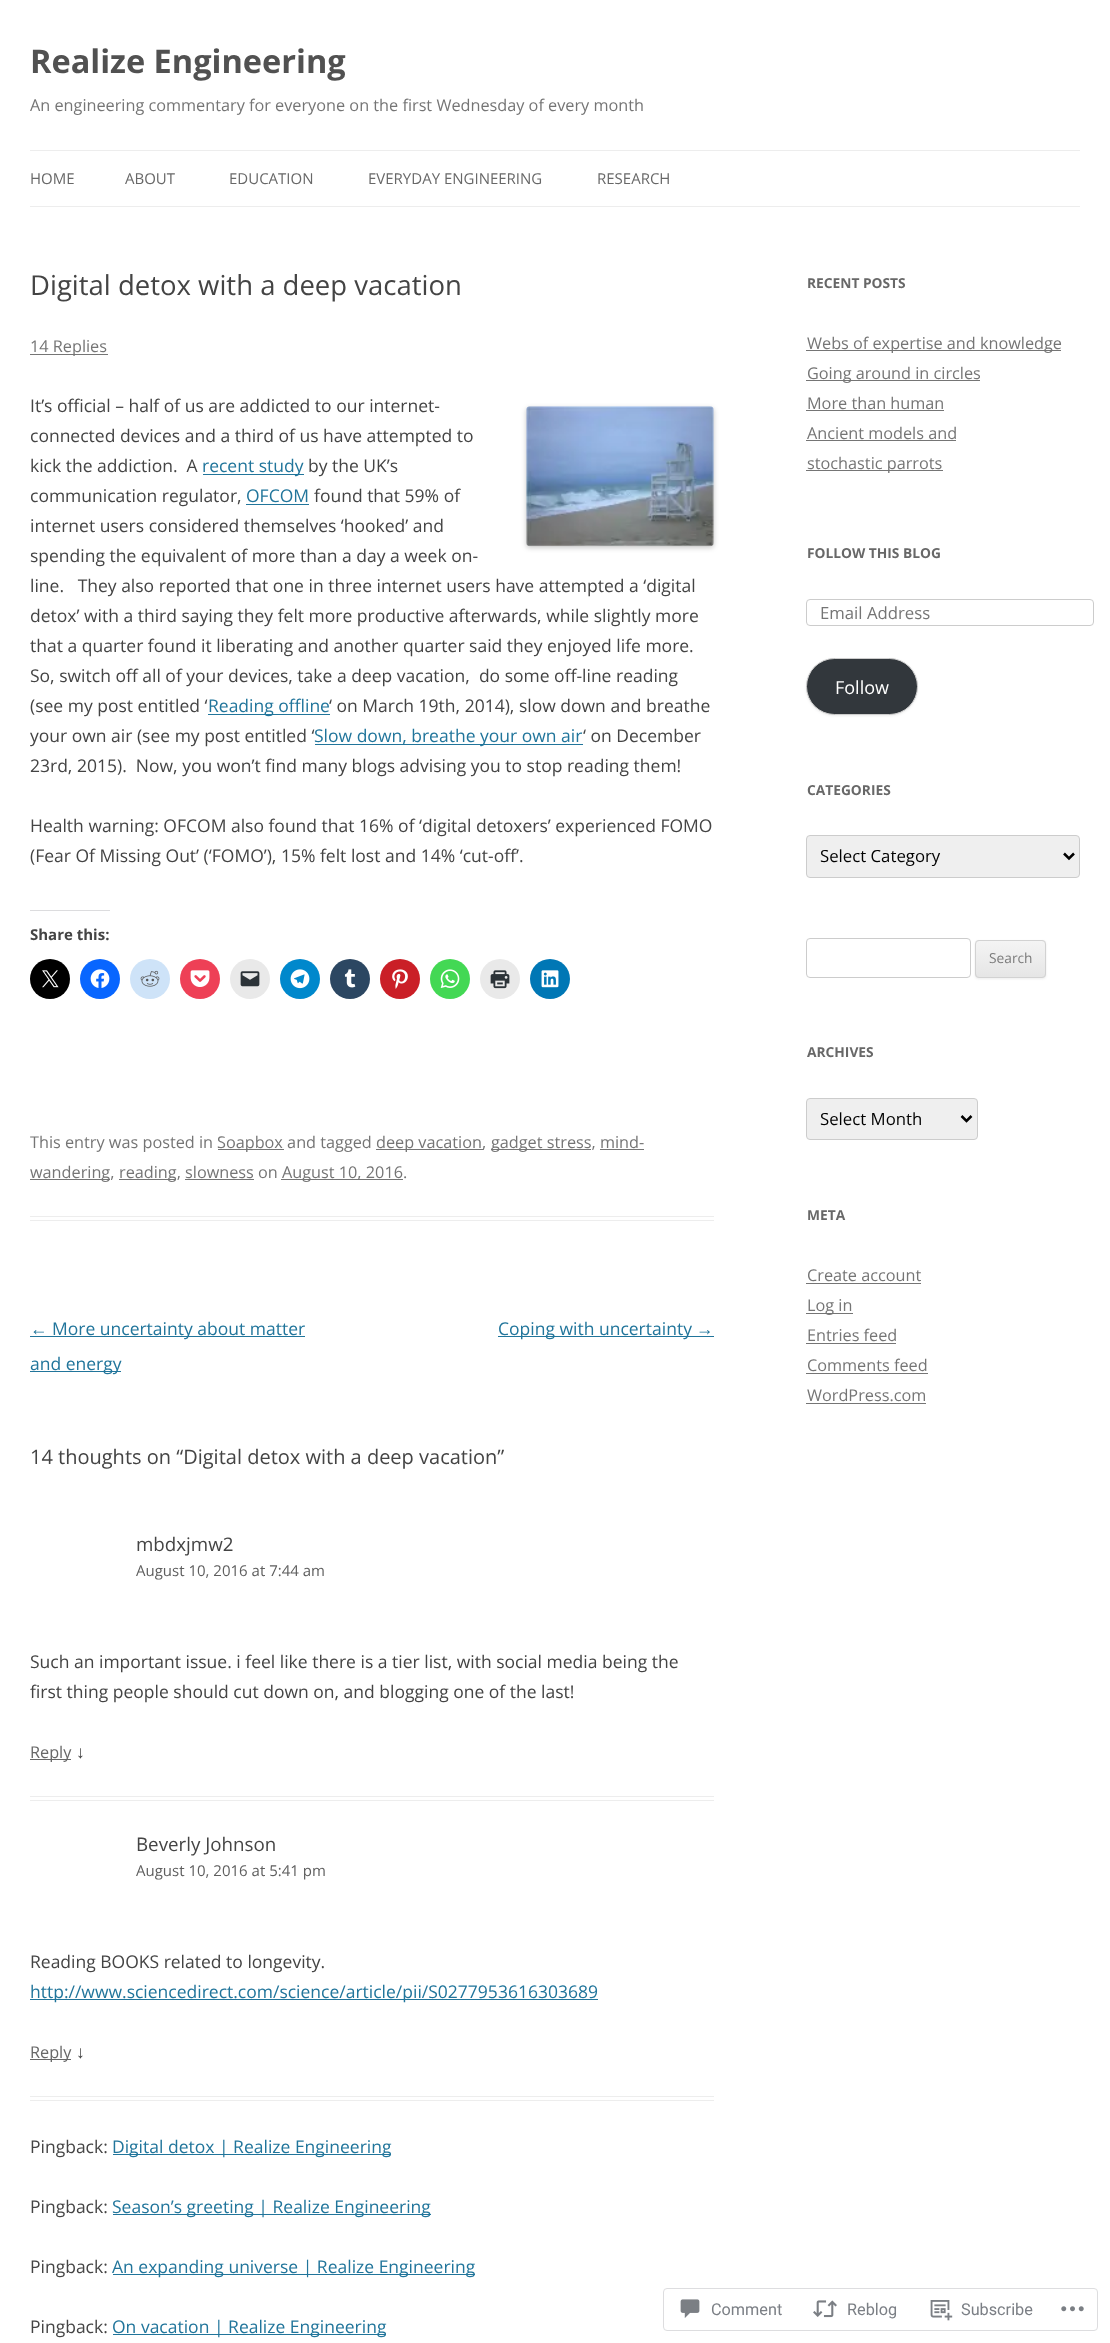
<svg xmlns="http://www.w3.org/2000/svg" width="1110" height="2343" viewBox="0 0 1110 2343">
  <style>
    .t1 { font: bold 32.5px Open Sans; fill: #515151; }
    .t2 { font: 16.25px Open Sans; fill: #757575; }
    .t3 { font: 15px Open Sans; fill: #686868; }
    .t4 { font: 27.5px Open Sans; fill: #444; }
    .t5 { font: 17.5px Open Sans; fill: #444; }
    .t6 { font: 17.5px Open Sans; fill: #21759b; }
    .t7 { font: bold 15px Open Sans; fill: #444; }
    .t8 { font: 17.5px Liberation Sans; fill: #21759b; }
    .t9 { font: 20px Open Sans; fill: #444; }
    .t10 { font: 18.75px Open Sans; fill: #444; }
    .t11 { font: 15px Open Sans; fill: #5e5e5e; }
    .t12 { font: 16.25px Open Sans; fill: #686868; }
    .t13 { font: 17.5px Liberation Sans; fill: #444; }
    .t14 { font: bold 13.75px Open Sans; fill: #686868; }
    .t15 { font: 16.75px Open Sans; fill: #757575; }
    .t16 { font: 18px Open Sans; fill: #fff; }
    .t17 { font: 16.75px Open Sans; fill: #000; }
    .t18 { font: 13.75px Open Sans; fill: #7c7c7c; }
    .t19 { font: 16.25px Roboto; fill: #7b7f85; }
  </style>
  <defs>
    <clipPath id="clip1"><rect x="975" y="940" width="71" height="38" rx="4"/></clipPath>
    <linearGradient id="g1" gradientUnits="userSpaceOnUse" x1="1011" y1="941" x2="1011" y2="976"><stop offset="0" stop-color="#f4f4f4"/><stop offset="1" stop-color="#e6e6e6"/></linearGradient>
  </defs>
  <rect width="100%" height="100%" fill="#fff"/>
  <text x="30" y="73" class="t1">Realize Engineering</text>
  <text x="30" y="111" class="t2">An engineering commentary for everyone on the first Wednesday of every month</text>
  <rect x="30" y="150" width="1050" height="1" fill="#ededed"/>
  <rect x="30" y="206" width="1050" height="1" fill="#ededed"/>
  <text x="30" y="184" class="t3">HOME</text>
  <text x="125" y="184" class="t3">ABOUT</text>
  <text x="229" y="184" class="t3">EDUCATION</text>
  <text x="368" y="184" class="t3">EVERYDAY ENGINEERING</text>
  <text x="597" y="184" class="t3">RESEARCH</text>
  <rect x="30" y="1216" width="684" height="1" fill="#ededed"/>
  <rect x="30" y="1220" width="684" height="1" fill="#ededed"/>
  <text x="30" y="295" class="t4">Digital detox with a deep vacation</text>
  <rect x="30" y="354" width="78" height="1" fill="#757575"/>
  <text x="30" y="352" class="t2">14 Replies</text>
  <text x="30" y="412" class="t5">It’s official – half of us are addicted to our internet-</text>
  <rect x="526" y="408" width="188" height="140" rx="4" fill="#00000033" filter="blur(2.5px)"/>
  <image x="526" y="406" width="188" height="141" href="images/1.png"/>
  <text x="30" y="442" class="t5">connected devices and a third of us have attempted to</text>
  <text x="30" y="472" class="t5" xml:space="preserve">kick the addiction.  A</text>
  <rect x="203" y="474" width="101" height="1" fill="#21759b"/>
  <text x="202" y="472" class="t6">recent study</text>
  <text x="308" y="472" class="t5">by the UK’s</text>
  <text x="30" y="502" class="t5">communication regulator,</text>
  <text x="246" y="502" class="t6">OFCOM</text>
  <rect x="246" y="504" width="63" height="1" fill="#21759b"/>
  <text x="314" y="502" class="t5">found that 59% of</text>
  <text x="30" y="532" class="t5">internet users considered themselves ‘hooked’ and</text>
  <text x="30" y="562" class="t5">spending the equivalent of more than a day a week on-</text>
  <text x="30" y="592" class="t5" xml:space="preserve">line.   They also reported that one in three internet users have attempted a ‘digital</text>
  <text x="30" y="622" class="t5">detox’ with a third saying they felt more productive afterwards, while slightly more</text>
  <text x="30" y="652" class="t5">that a quarter found it liberating and another quarter said they enjoyed life more.</text>
  <text x="30" y="682" class="t5" xml:space="preserve">So, switch off all of your devices, take a deep vacation,  do some off-line reading</text>
  <text x="30" y="712" class="t5">(see my post entitled ‘</text>
  <rect x="208" y="714" width="122" height="1" fill="#21759b"/>
  <text x="208" y="712" class="t6">Reading offline</text>
  <text x="329" y="712" class="t5">‘ on March 19th, 2014), slow down and breathe</text>
  <text x="30" y="742" class="t5">your own air (see my post entitled ‘</text>
  <rect x="315" y="744" width="268" height="1" fill="#21759b"/>
  <text x="314" y="742" class="t6">Slow down, breathe your own air</text>
  <text x="583" y="742" class="t5">‘ on December</text>
  <text x="30" y="772" class="t5" xml:space="preserve">23rd, 2015).  Now, you won’t find many blogs advising you to stop reading them!</text>
  <text x="30" y="832" class="t5">Health warning: OFCOM also found that 16% of ‘digital detoxers’ experienced FOMO</text>
  <text x="30" y="862" class="t5">(Fear Of Missing Out’ (‘FOMO’), 15% felt lost and 14% ‘cut-off’.</text>
  <rect x="30" y="910" width="80" height="1" fill="#dcdcde"/>
  <text x="30" y="940" class="t7">Share this:</text>
  <circle cx="50" cy="979" r="20" fill="#000"/>
  <image x="42" y="970" width="17" height="18" href="images/2.png"/>
  <circle cx="100" cy="979" r="20" fill="#0866ff"/>
  <image x="90" y="969" width="20" height="19" href="images/3.png"/>
  <circle cx="150" cy="979" r="20" fill="#cee3f8"/>
  <image x="140" y="970" width="20" height="17" href="images/4.png"/>
  <circle cx="200" cy="979" r="20" fill="#ee4056"/>
  <image x="190" y="970" width="20" height="17" href="images/5.png"/>
  <circle cx="250" cy="979" r="20" fill="#e9e9e9"/>
  <image x="240" y="971" width="20" height="16" href="images/6.png"/>
  <circle cx="300" cy="979" r="20" fill="#08c"/>
  <image x="290" y="969" width="20" height="20" href="images/7.png"/>
  <circle cx="350" cy="979" r="20" fill="#2c4762"/>
  <image x="344" y="969" width="12" height="19" href="images/8.png"/>
  <circle cx="400" cy="979" r="20" fill="#ca1f27"/>
  <image x="392" y="969" width="16" height="20" href="images/9.png"/>
  <circle cx="450" cy="979" r="20" fill="#43d854"/>
  <image x="440" y="969" width="20" height="19" href="images/10.png"/>
  <circle cx="500" cy="979" r="20" fill="#e9e9e9"/>
  <image x="490" y="970" width="20" height="19" href="images/11.png"/>
  <circle cx="550" cy="979" r="20" fill="#0077b5"/>
  <image x="541" y="970" width="18" height="18" href="images/12.png"/>
  <text x="30" y="1148" class="t2">This entry was posted in</text>
  <rect x="218" y="1149" width="66" height="1" fill="#757575"/>
  <text x="217" y="1148" class="t2">Soapbox and tagged</text>
  <rect x="376" y="1149" width="107" height="1" fill="#757575"/>
  <text x="376" y="1148" class="t2">deep vacation,</text>
  <rect x="491" y="1149" width="100" height="1" fill="#757575"/>
  <text x="491" y="1148" class="t2">gadget stress, mind-</text>
  <rect x="30" y="1179" width="80" height="1" fill="#757575"/>
  <text x="30" y="1178" class="t2">wandering,</text>
  <rect x="600" y="1149" width="44" height="1" fill="#757575"/>
  <rect x="119" y="1179" width="57" height="1" fill="#757575"/>
  <text x="119" y="1178" class="t2">reading, slowness on</text>
  <rect x="281" y="1179" width="122" height="1" fill="#757575"/>
  <text x="282" y="1178" class="t2">August 10, 2016.</text>
  <rect x="185" y="1179" width="69" height="1" fill="#757575"/>
  <text x="30" y="1335" class="t8">←</text>
  <rect x="30" y="1336" width="275" height="1" fill="#21759b"/>
  <text x="52" y="1335" class="t6">More uncertainty about matter</text>
  <rect x="30" y="1371" width="91" height="1" fill="#21759b"/>
  <text x="30" y="1370" class="t6">and energy</text>
  <rect x="498" y="1336" width="216" height="1" fill="#21759b"/>
  <text x="498" y="1335" class="t6">Coping with uncertainty</text>
  <text x="696" y="1335" class="t8">→</text>
  <text x="30" y="1464" class="t9">14 thoughts on “Digital detox with a deep vacation”</text>
  <rect x="30" y="1796" width="684" height="1" fill="#ededed"/>
  <rect x="30" y="1800" width="684" height="1" fill="#ededed"/>
  <text x="136" y="1551" class="t10">mbdxjmw2</text>
  <text x="136" y="1576" class="t11">August 10, 2016 at 7:44 am</text>
  <text x="30" y="1668" class="t5">Such an important issue. i feel like there is a tier list, with social media being the</text>
  <text x="30" y="1698" class="t5">first thing people should cut down on, and blogging one of the last!</text>
  <rect x="30" y="1759" width="41" height="1" fill="#686868"/>
  <text x="30" y="1758" class="t12">Reply</text>
  <text x="76" y="1758" class="t13">↓</text>
  <rect x="30" y="2096" width="684" height="1" fill="#ededed"/>
  <rect x="30" y="2100" width="684" height="1" fill="#ededed"/>
  <text x="136" y="1851" class="t10">Beverly Johnson</text>
  <text x="136" y="1876" class="t11">August 10, 2016 at 5:41 pm</text>
  <text x="30" y="1968" class="t5">Reading BOOKS related to longevity.</text>
  <rect x="30" y="1999" width="568" height="1" fill="#21759b"/>
  <text x="30" y="1998" class="t6">http://www.sciencedirect.com/science/article/pii/S0277953616303689</text>
  <rect x="30" y="2059" width="41" height="1" fill="#686868"/>
  <text x="30" y="2058" class="t12">Reply</text>
  <text x="76" y="2058" class="t13">↓</text>
  <text x="30" y="2153" class="t5">Pingback:</text>
  <rect x="113" y="2154" width="278" height="1" fill="#21759b"/>
  <text x="112" y="2153" class="t6">Digital detox | Realize Engineering</text>
  <text x="30" y="2213" class="t5">Pingback:</text>
  <rect x="113" y="2214" width="318" height="1" fill="#21759b"/>
  <text x="112" y="2213" class="t6">Season’s greeting | Realize Engineering</text>
  <text x="30" y="2273" class="t5">Pingback:</text>
  <rect x="113" y="2274" width="362" height="1" fill="#21759b"/>
  <text x="112" y="2273" class="t6">An expanding universe | Realize Engineering</text>
  <text x="30" y="2333" class="t5">Pingback:</text>
  <rect x="113" y="2334" width="273" height="1" fill="#21759b"/>
  <text x="112" y="2333" class="t6">On vacation | Realize Engineering</text>
  <text x="807" y="288" class="t14">RECENT POSTS</text>
  <rect x="806" y="350" width="255" height="1" fill="#757575"/>
  <text x="807" y="349" class="t2">Webs of expertise and knowledge</text>
  <rect x="806" y="380" width="174" height="1" fill="#757575"/>
  <text x="807" y="379" class="t2">Going around in circles</text>
  <text x="807" y="409" class="t2">More than human</text>
  <rect x="806" y="410" width="138" height="1" fill="#757575"/>
  <text x="807" y="439" class="t2">Ancient models and</text>
  <rect x="806" y="440" width="150" height="1" fill="#757575"/>
  <rect x="806" y="470" width="137" height="1" fill="#757575"/>
  <text x="807" y="469" class="t2">stochastic parrots</text>
  <text x="807" y="558" class="t14">FOLLOW THIS BLOG</text>
  <rect x="806.5" y="599.5" width="287" height="26" rx="3.5" fill="none" stroke="#ccc"/>
  <text x="820" y="619" class="t15">Email Address</text>
  <rect x="806" y="659" width="112" height="57" rx="28.5" fill="#4040401a" filter="blur(1px)"/>
  <rect x="806.5" y="658.5" width="111" height="56" rx="28" fill="#32373c" stroke="#ccc"/>
  <text x="835" y="694" class="t16">Follow</text>
  <text x="807" y="795" class="t14">CATEGORIES</text>
  <rect x="806.5" y="835.5" width="273" height="42" rx="3.5" fill="#efefef" stroke="#ccc"/>
  <path d="M1064 853.5L1069 858.5L1074 853.5" fill="none" stroke="#000" stroke-width="2.5"/>
  <text x="820" y="862" class="t17">Select Category</text>
  <rect x="806.5" y="938.5" width="164" height="39" rx="3.5" fill="none" stroke="#ccc"/>
  <rect x="975" y="941" width="71" height="38" rx="4" fill="#4040401a" filter="blur(1px)"/>
  <rect x="975" y="940" width="71" height="38" rx="4" fill="#e6e6e6"/>
  <g clip-path="url(#clip1)">
    <rect x="975" y="941" width="71" height="35" fill="url(#g1)"/>
  </g>
  <rect x="975.5" y="940.5" width="70" height="37" rx="3.5" fill="none" stroke="#d2d2d2"/>
  <text x="989" y="963" class="t18">Search</text>
  <text x="807" y="1057" class="t14">ARCHIVES</text>
  <rect x="806.5" y="1098.5" width="171" height="41" rx="3.5" fill="#efefef" stroke="#ccc"/>
  <path d="M961.5 1116L966.5 1121L971.5 1116" fill="none" stroke="#000" stroke-width="2.5"/>
  <text x="820" y="1125" class="t17">Select Month</text>
  <text x="807" y="1220" class="t14">META</text>
  <text x="807" y="1281" class="t2">Create account</text>
  <rect x="806" y="1283" width="115" height="1" fill="#757575"/>
  <rect x="806" y="1313" width="47" height="1" fill="#757575"/>
  <text x="807" y="1311" class="t2">Log in</text>
  <text x="807" y="1341" class="t2">Entries feed</text>
  <rect x="806" y="1343" width="90" height="1" fill="#757575"/>
  <text x="807" y="1371" class="t2">Comments feed</text>
  <rect x="806" y="1373" width="122" height="1" fill="#757575"/>
  <text x="807" y="1401" class="t2">WordPress.com</text>
  <rect x="806" y="1403" width="120" height="1" fill="#757575"/>
  <rect x="663.5" y="2288.5" width="434" height="42" rx="3.5" fill="none" stroke="#dddddf"/>
  <image x="680" y="2299" width="20" height="19" href="images/13.png"/>
  <text x="711" y="2315" class="t19">Comment</text>
  <image x="813" y="2300" width="24" height="18" href="images/14.png"/>
  <text x="847" y="2315" class="t19">Reblog</text>
  <image x="930" y="2300" width="23" height="21" href="images/15.png"/>
  <text x="961" y="2315" class="t19">Subscribe</text>
  <image x="1061" y="2306" width="23" height="6" href="images/16.png"/>
</svg>
